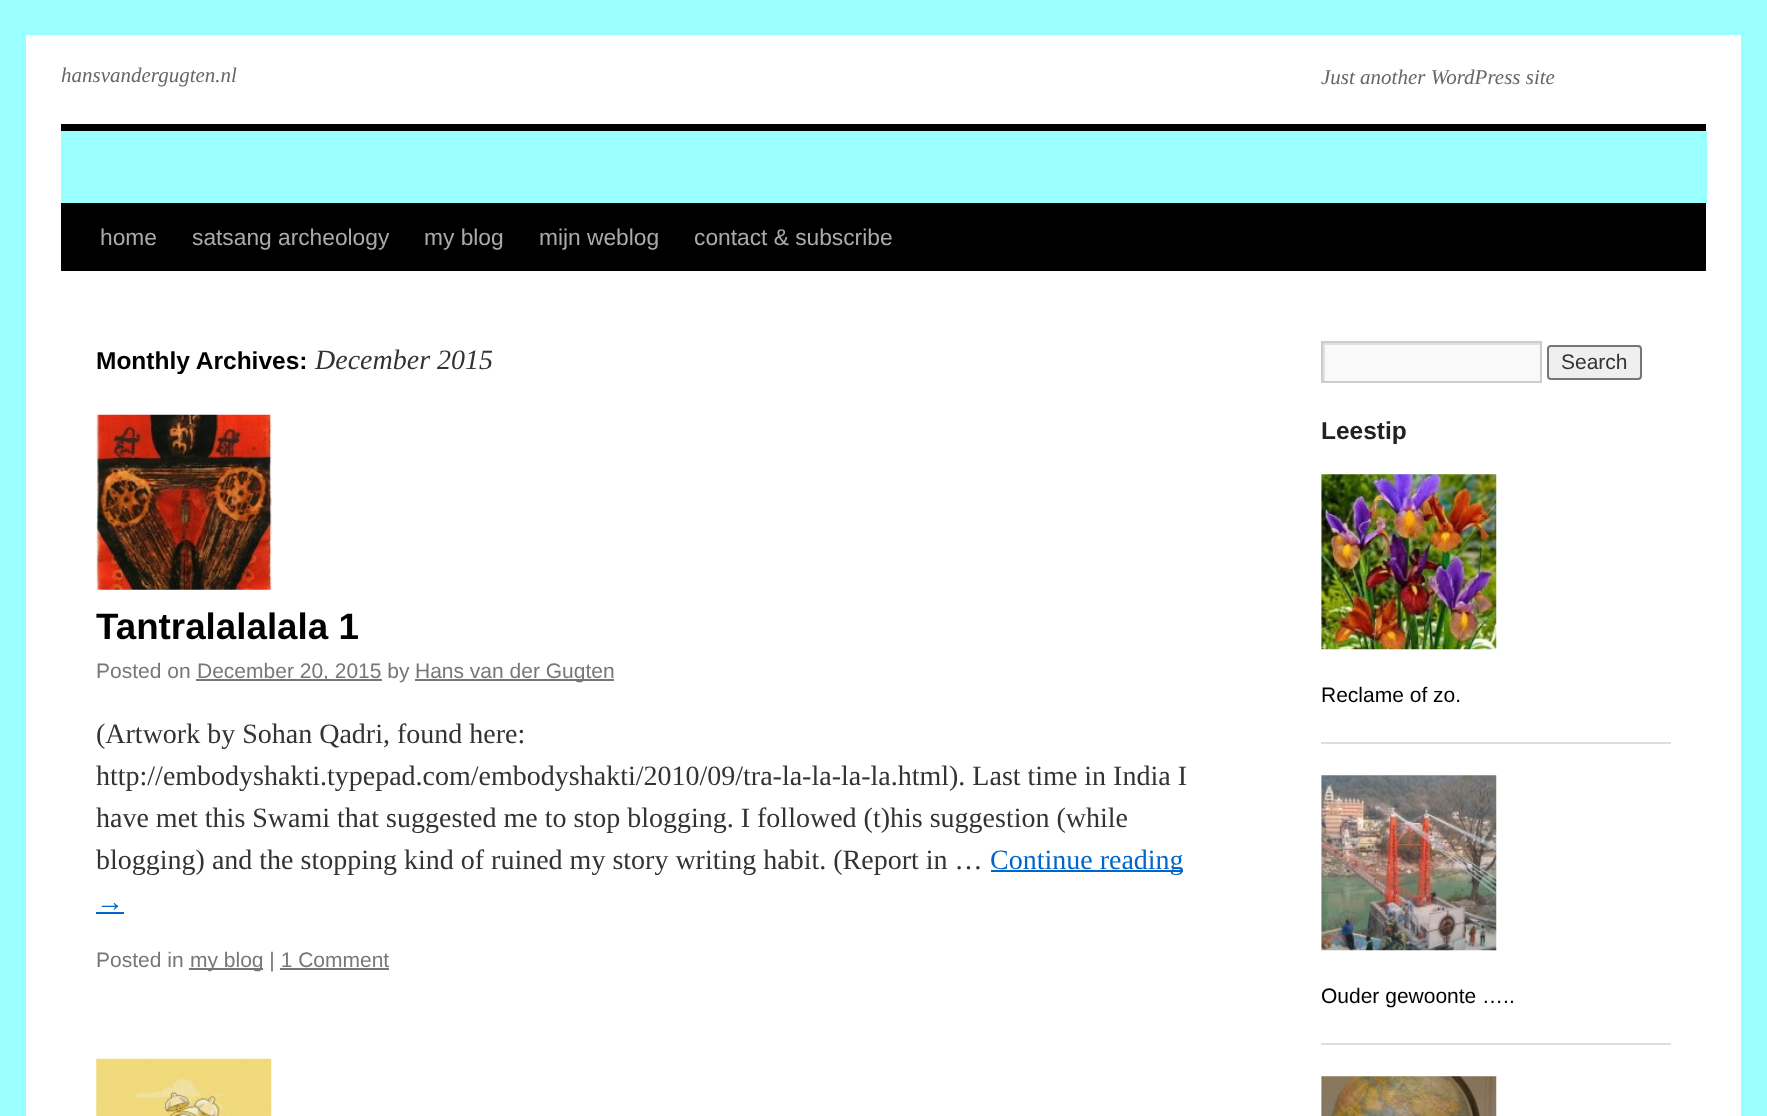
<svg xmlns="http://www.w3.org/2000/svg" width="1767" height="1116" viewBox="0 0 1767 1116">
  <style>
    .t1 { font: italic 21px Liberation Serif; fill: #666; }
    .t2 { font: 22.75px Liberation Sans; fill: #aaa; }
    .t3 { font: bold 24.5px Liberation Sans; fill: #000; }
    .t4 { font: italic 28px Liberation Serif; fill: #333; }
    .t5 { font: bold 36.75px Liberation Sans; fill: #000; }
    .t6 { font: 21px Liberation Sans; fill: #777; }
    .t7 { font: 28px Liberation Serif; fill: #333; }
    .t8 { font: 28px Liberation Serif; fill: #06c; }
    .t9 { font: 21px Liberation Sans; fill: #333; }
    .t10 { font: bold 24.5px Liberation Sans; fill: #222; }
    .t11 { font: 21px Liberation Sans; fill: #000; }
  </style>
  <defs>
    <clipPath id="clip1"><rect x="1323" y="343" width="217" height="39"/></clipPath>
  </defs>
  <rect width="100%" height="100%" fill="#9ff"/>
  <rect x="26" y="35" width="1715" height="1081" fill="#fff"/>
  <text x="61" y="82" class="t1">hansvandergugten.nl</text>
  <text x="1321" y="84" class="t1">Just another WordPress site</text>
  <rect x="61" y="124" width="1645" height="7" fill="#000"/>
  <rect x="61" y="203" width="1645" height="68" fill="#000"/>
  <rect x="61" y="131" width="1646" height="72" fill="#9ff"/>
  <text x="100" y="245" class="t2">home</text>
  <text x="192" y="245" class="t2">satsang archeology</text>
  <text x="424" y="245" class="t2">my blog</text>
  <text x="539" y="245" class="t2">mijn weblog</text>
  <text x="694" y="245" class="t2">contact &amp; subscribe</text>
  <text x="96" y="369" class="t3">Monthly Archives:</text>
  <text x="315" y="369" class="t4">December 2015</text>
  <image x="96" y="414" width="176" height="176" href="images/1.png"/>
  <text x="96" y="639" class="t5">Tantralalalala 1</text>
  <text x="96" y="678" class="t6">Posted on</text>
  <rect x="196" y="679" width="186" height="2" fill="#777"/>
  <text x="197" y="678" class="t6">December 20, 2015 by</text>
  <rect x="415" y="679" width="199" height="2" fill="#777"/>
  <text x="415" y="678" class="t6">Hans van der Gugten</text>
  <text x="96" y="743" class="t7">(Artwork by Sohan Qadri, found here:</text>
  <text x="96" y="785" class="t7">http://embodyshakti.typepad.com/embodyshakti/2010/09/tra-la-la-la-la.html). Last time in India I</text>
  <text x="96" y="827" class="t7">have met this Swami that suggested me to stop blogging. I followed (t)his suggestion (while</text>
  <text x="96" y="869" class="t7">blogging) and the stopping kind of ruined my story writing habit. (Report in …</text>
  <rect x="991" y="870" width="192" height="2" fill="#06c"/>
  <text x="990" y="869" class="t8">Continue reading</text>
  <text x="96" y="911" class="t8">→</text>
  <rect x="96" y="912" width="28" height="2" fill="#06c"/>
  <text x="96" y="967" class="t6">Posted in</text>
  <rect x="189" y="968" width="74" height="2" fill="#777"/>
  <text x="190" y="967" class="t6">my blog | 1 Comment</text>
  <rect x="280" y="968" width="109" height="2" fill="#777"/>
  <image x="96" y="1058" width="176" height="58" href="images/2.png"/>
  <rect x="1325" y="345" width="215" height="36" fill="#f9f9f9"/>
  <g clip-path="url(#clip1)">
    <path d="M1150 170H1713V555H1150ZM1325 345H1542V383H1325Z" fill="#e0e0e0" fill-rule="evenodd"/>
  </g>
  <rect x="1322" y="342" width="219" height="40" fill="none" stroke="#ccc" stroke-width="2"/>
  <rect x="1548" y="346" width="93" height="33" rx="3" fill="#efefef" stroke="#767676" stroke-width="2"/>
  <text x="1561" y="369" class="t9">Search</text>
  <text x="1321" y="439" class="t10">Leestip</text>
  <rect x="1321" y="742" width="350" height="2" fill="#ddd"/>
  <image x="1321" y="474" width="176" height="176" href="images/3.png"/>
  <text x="1321" y="702" class="t11">Reclame of zo.</text>
  <rect x="1321" y="1043" width="350" height="2" fill="#ddd"/>
  <image x="1321" y="775" width="176" height="176" href="images/4.png"/>
  <text x="1321" y="1003" class="t11">Ouder gewoonte …..</text>
  <image x="1321" y="1076" width="176" height="40" href="images/5.png"/>
</svg>
